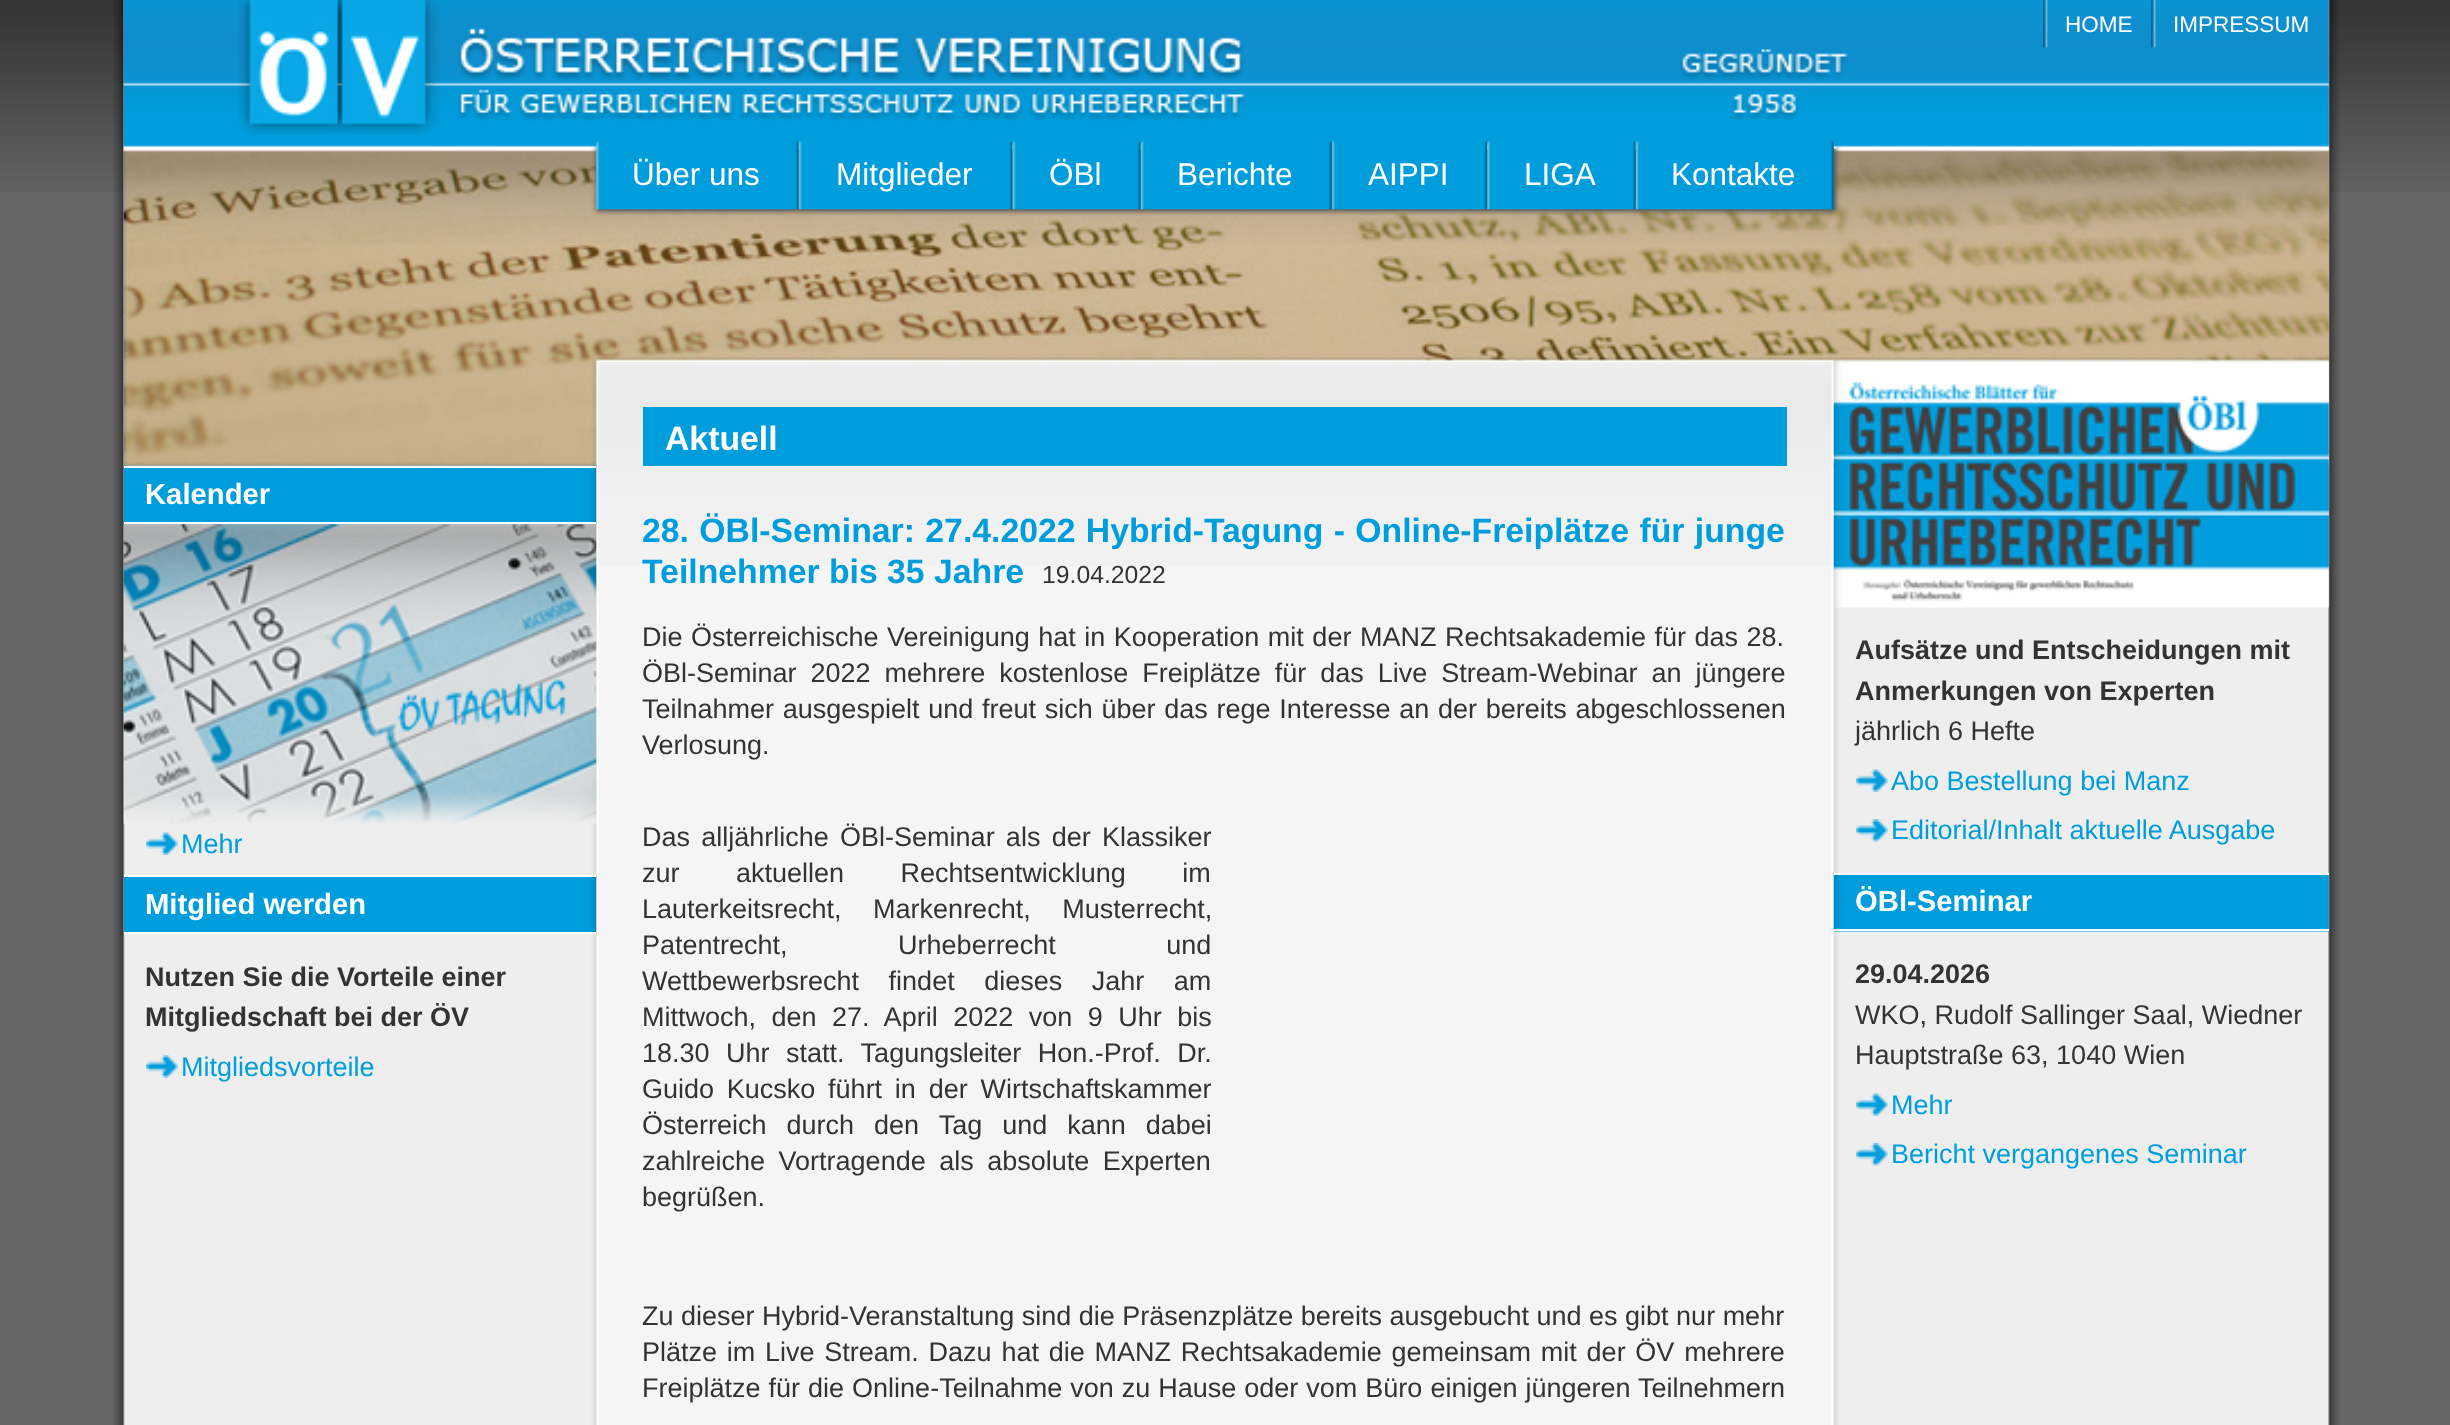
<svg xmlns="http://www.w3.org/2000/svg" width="2450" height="1425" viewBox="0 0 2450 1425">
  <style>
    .t1 { font: 22.5px Liberation Sans; fill: #fff; }
    .t2 { font: 31.5px Liberation Sans; fill: #fff; }
    .t3 { font: bold 29.25px Liberation Sans; fill: #fff; }
    .t4 { font: 27px Liberation Sans; fill: #009ddc; }
    .t5 { font: bold 27px Liberation Sans; fill: #333; }
    .t6 { font: bold 33.75px Liberation Sans; fill: #fff; }
    .t7 { font: bold 33.75px Liberation Sans; fill: #009ddc; }
    .t8 { font: 24.75px Liberation Sans; fill: #333; }
    .t9 { font: 27px Liberation Sans; fill: #333; }
  </style>
  <rect width="100%" height="100%" fill="#666"/>
  <image x="0" y="0" width="2450" height="192" href="images/1.png"/>
  <image x="113" y="0" width="2227" height="1425" href="images/2.png"/>
  <image x="123" y="144" width="2206" height="322" href="images/7.png"/>
  <image x="123" y="0" width="2206" height="244" href="images/3.png"/>
  <image x="238" y="0" width="1007" height="135" href="images/4.png"/>
  <image x="2043" y="0" width="5" height="48" href="images/5.png"/>
  <text x="2065" y="32" class="t1">HOME</text>
  <image x="2151" y="0" width="5" height="48" href="images/5.png"/>
  <text x="2173" y="32" class="t1">IMPRESSUM</text>
  <image x="1680" y="49" width="168" height="71" href="images/6.png"/>
  <image x="591" y="146" width="1250" height="70" href="images/8.png"/>
  <image x="596" y="141" width="203" height="69" href="images/9.png"/>
  <text x="632" y="185" class="t2">Über uns</text>
  <image x="798" y="141" width="215" height="69" href="images/10.png"/>
  <text x="836" y="185" class="t2">Mitglieder</text>
  <image x="1012" y="141" width="129" height="69" href="images/11.png"/>
  <text x="1049" y="185" class="t2">ÖBl</text>
  <image x="1140" y="141" width="192" height="69" href="images/12.png"/>
  <text x="1177" y="185" class="t2">Berichte</text>
  <image x="1332" y="141" width="156" height="69" href="images/13.png"/>
  <text x="1368" y="185" class="t2">AIPPI</text>
  <image x="1487" y="141" width="149" height="69" href="images/14.png"/>
  <text x="1524" y="185" class="t2">LIGA</text>
  <image x="1635" y="141" width="199" height="69" href="images/15.png"/>
  <text x="1671" y="185" class="t2">Kontakte</text>
  <image x="124" y="357" width="2205" height="109" href="images/16.png"/>
  <image x="123" y="465" width="474" height="60" href="images/17.png"/>
  <rect x="124" y="466" width="472" height="2" fill="#fff"/>
  <rect x="124" y="522" width="472" height="2" fill="#fff"/>
  <text x="145" y="504" class="t3">Kalender</text>
  <image x="123" y="524" width="474" height="300" href="images/18.png"/>
  <image x="146" y="832" width="32" height="23" href="images/19.png"/>
  <text x="181" y="853" class="t4">Mehr</text>
  <image x="123" y="875" width="474" height="59" href="images/20.png"/>
  <rect x="124" y="875" width="472" height="2" fill="#fff"/>
  <rect x="124" y="932" width="472" height="2" fill="#fff"/>
  <text x="145" y="914" class="t3">Mitglied werden</text>
  <text x="145" y="986" class="t5">Nutzen Sie die Vorteile einer</text>
  <text x="145" y="1026" class="t5">Mitgliedschaft bei der ÖV</text>
  <image x="146" y="1055" width="32" height="23" href="images/21.png"/>
  <text x="181" y="1076" class="t4">Mitgliedsvorteile</text>
  <image x="598" y="362" width="1234" height="204" href="images/22.png"/>
  <rect x="643" y="407" width="1144" height="59" fill="#009ddc"/>
  <text x="665" y="450" class="t6">Aktuell</text>
  <text x="642" y="542" word-spacing="1" class="t7">28. ÖBl-Seminar: 27.4.2022 Hybrid-Tagung - Online-Freiplätze für junge</text>
  <text x="642" y="583" class="t7">Teilnehmer bis 35 Jahre</text>
  <text x="1042" y="583" class="t8">19.04.2022</text>
  <text x="642" y="646" word-spacing="1" class="t9">Die Österreichische Vereinigung hat in Kooperation mit der MANZ Rechtsakademie für das 28.</text>
  <text x="642" y="682" word-spacing="6.5" class="t9">ÖBl-Seminar 2022 mehrere kostenlose Freiplätze für das Live Stream-Webinar an jüngere</text>
  <text x="642" y="718" word-spacing="1.25" class="t9">Teilnahmer ausgespielt und freut sich über das rege Interesse an der bereits abgeschlossenen</text>
  <text x="642" y="754" class="t9">Verlosung.</text>
  <text x="642" y="846" word-spacing="3.75" class="t9">Das alljährliche ÖBl-Seminar als der Klassiker</text>
  <text x="642" y="882" word-spacing="49" class="t9">zur aktuellen Rechtsentwicklung im</text>
  <text x="642" y="918" word-spacing="24" class="t9">Lauterkeitsrecht, Markenrecht, Musterrecht,</text>
  <text x="642" y="954" word-spacing="103" class="t9">Patentrecht, Urheberrecht und</text>
  <text x="642" y="990" word-spacing="22" class="t9">Wettbewerbsrecht findet dieses Jahr am</text>
  <text x="642" y="1026" word-spacing="8" class="t9">Mittwoch, den 27. April 2022 von 9 Uhr bis</text>
  <text x="642" y="1062" word-spacing="9" class="t9">18.30 Uhr statt. Tagungsleiter Hon.-Prof. Dr.</text>
  <text x="642" y="1098" word-spacing="5.25" class="t9">Guido Kucsko führt in der Wirtschaftskammer</text>
  <text x="642" y="1134" word-spacing="12.5" class="t9">Österreich durch den Tag und kann dabei</text>
  <text x="642" y="1170" word-spacing="6" class="t9">zahlreiche Vortragende als absolute Experten</text>
  <text x="642" y="1206" class="t9">begrüßen.</text>
  <text x="642" y="1325" class="t9">Zu dieser Hybrid-Veranstaltung sind die Präsenzplätze bereits ausgebucht und es gibt nur mehr</text>
  <text x="642" y="1361" word-spacing="2.25" class="t9">Plätze im Live Stream. Dazu hat die MANZ Rechtsakademie gemeinsam mit der ÖV mehrere</text>
  <text x="642" y="1397" word-spacing="0.5" class="t9">Freiplätze für die Online-Teilnahme von zu Hause oder vom Büro einigen jüngeren Teilnehmern</text>
  <image x="1833" y="362" width="496" height="246" href="images/23.png"/>
  <text x="1855" y="659" class="t5">Aufsätze und Entscheidungen mit</text>
  <text x="1855" y="700" class="t5">Anmerkungen von Experten</text>
  <text x="1855" y="740" class="t9">jährlich 6 Hefte</text>
  <image x="1856" y="769" width="32" height="23" href="images/24.png"/>
  <text x="1891" y="790" class="t4">Abo Bestellung bei Manz</text>
  <image x="1856" y="819" width="32" height="23" href="images/25.png"/>
  <text x="1891" y="839" class="t4">Editorial/Inhalt aktuelle Ausgabe</text>
  <image x="1833" y="873" width="496" height="59" href="images/26.png"/>
  <rect x="1834" y="873" width="495" height="2" fill="#fff"/>
  <rect x="1834" y="929" width="495" height="2" fill="#fff"/>
  <text x="1855" y="911" class="t3">ÖBl-Seminar</text>
  <text x="1855" y="983" class="t5">29.04.2026</text>
  <text x="1855" y="1024" class="t9">WKO, Rudolf Sallinger Saal, Wiedner</text>
  <text x="1855" y="1064" class="t9">Hauptstraße 63, 1040 Wien</text>
  <image x="1856" y="1093" width="32" height="23" href="images/24.png"/>
  <text x="1891" y="1114" class="t4">Mehr</text>
  <image x="1856" y="1143" width="32" height="23" href="images/25.png"/>
  <text x="1891" y="1163" class="t4">Bericht vergangenes Seminar</text>
</svg>
